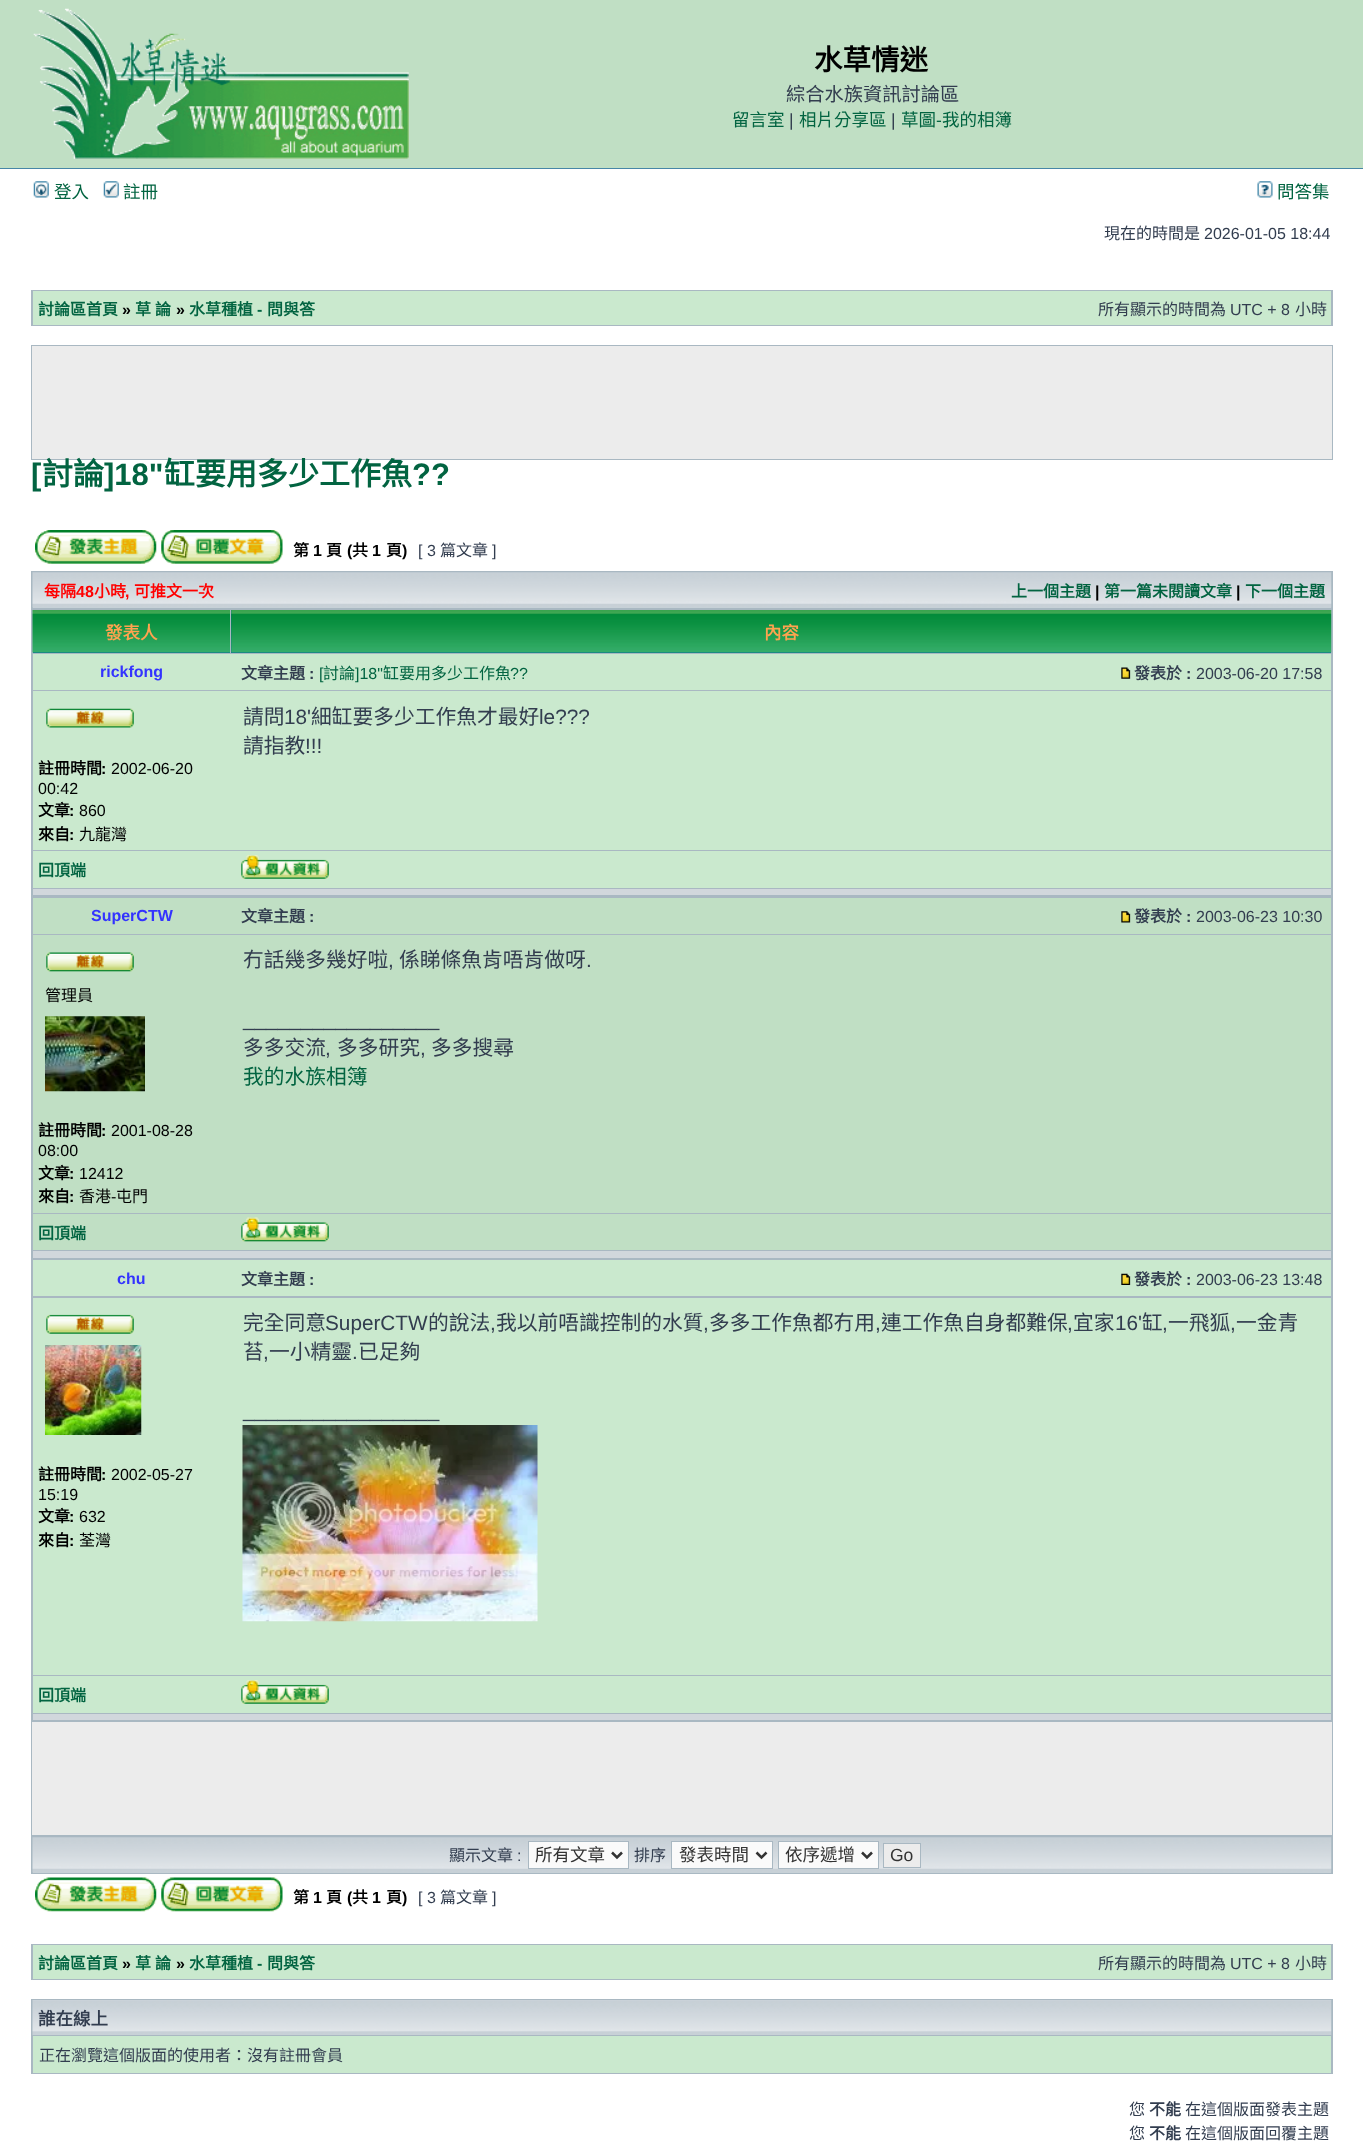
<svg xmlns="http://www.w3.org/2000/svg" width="1363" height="2144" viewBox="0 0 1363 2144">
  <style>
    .t1 { font: bold 28.5px Noto Sans CJK TC; fill: #000; }
    .t2 { font: 19.25px Noto Sans CJK TC; fill: #323d4f; }
    .t3 { font: 17.5px Noto Sans CJK TC; fill: #026441; }
    .t4 { font: 17.5px Liberation Sans; fill: #323d4f; }
    .t5 { font: 17.5px Liberation Sans; fill: #026441; }
    .t6 { font: 16px Noto Sans CJK TC; fill: #323d4f; }
    .t7 { font: 16px Liberation Sans; fill: #323d4f; }
    .t8 { font: bold 16px Noto Sans CJK TC; fill: #026441; }
    .t9 { font: bold 16px Liberation Sans; fill: #000; }
    .t10 { font: bold 16px Liberation Sans; fill: #026441; }
    .t11 { font: bold 31px Liberation Sans; fill: #026441; }
    .t12 { font: bold 31px Noto Sans CJK TC; fill: #026441; }
    .t13 { font: bold 16px Noto Sans CJK TC; fill: #000; }
    .t14 { font: bold 16px Noto Sans CJK TC; fill: #f00; }
    .t15 { font: bold 16px Liberation Sans; fill: #f00; }
    .t16 { font: bold 17.5px Noto Sans CJK TC; fill: #ffa34f; }
    .t17 { font: bold 16px Liberation Sans; fill: #33f; }
    .t18 { font: bold 16px Noto Sans CJK TC; fill: #323d4f; }
    .t19 { font: bold 16px Liberation Sans; fill: #323d4f; }
    .t20 { font: 16px Liberation Sans; fill: #026441; }
    .t21 { font: 16px Noto Sans CJK TC; fill: #026441; }
    .t22 { font: 20.75px Noto Sans CJK TC; fill: #323d4f; }
    .t23 { font: 20.75px Liberation Sans; fill: #323d4f; }
    .t24 { font: 16px Liberation Sans; fill: #000; }
    .t25 { font: 16px Noto Sans CJK TC; fill: #000; }
    .t26 { font: 20.75px Noto Sans CJK TC; fill: #026441; }
    .t27 { font: 17.5px Noto Sans CJK TC; fill: #333; }
    .t28 { font: 17.5px Liberation Sans; fill: #333; }
    .t29 { font: bold 17.5px Noto Sans CJK TC; fill: #323d4f; }
  </style>
  <rect width="100%" height="100%" fill="#fff"/>
  <rect x="0" y="0" width="1363" height="168" fill="#c0dfc4"/>
  <rect x="0" y="168" width="1363" height="1" fill="#4787a7"/>
  <image x="33" y="8" width="376" height="151" href="images/1.png"/>
  <text x="814" y="70" class="t1">水草情迷</text>
  <text x="786" y="101" class="t2">綜合水族資訊討論區</text>
  <text x="732" y="126" class="t3">留言室</text>
  <text x="789" y="126" class="t4">|</text>
  <text x="799" y="126" class="t3">相片分享區</text>
  <text x="891" y="126" class="t4">|</text>
  <text x="901" y="126" class="t3">草圖</text>
  <text x="936" y="126" class="t5">-</text>
  <text x="942" y="126" class="t3">我的相簿</text>
  <image x="33" y="181" width="16" height="17" href="images/2.png"/>
  <text x="54" y="198" class="t3">登入</text>
  <image x="103" y="181" width="16" height="17" href="images/3.png"/>
  <text x="123" y="198" class="t3">註冊</text>
  <image x="1257" y="181" width="16" height="17" href="images/4.png"/>
  <text x="1277" y="198" class="t3">問答集</text>
  <text x="1104" y="239" class="t6">現在的時間是</text>
  <text x="1204" y="239" class="t7">2026-01-05 18:44</text>
  <rect x="31" y="290" width="1302" height="36" fill="#a9b8c2"/>
  <rect x="33" y="291" width="1298" height="34" fill="#cae9ce"/>
  <text x="38" y="315" class="t8">討論區首頁</text>
  <text x="122" y="315" class="t9">»</text>
  <text x="135" y="315" class="t8">草</text>
  <text x="155" y="315" class="t8">論</text>
  <text x="176" y="315" class="t9">»</text>
  <text x="189" y="315" class="t8">水草種植</text>
  <text x="257" y="315" class="t10">-</text>
  <text x="267" y="315" class="t8">問與答</text>
  <text x="1098" y="315" class="t6">所有顯示的時間為</text>
  <text x="1230" y="315" class="t7">UTC + 8</text>
  <text x="1295" y="315" class="t6">小時</text>
  <rect x="31.5" y="345.5" width="1301" height="114" fill="#ececec" stroke="#a9b8c2"/>
  <text x="31" y="485" class="t11">[</text>
  <text x="42" y="485" class="t12">討論</text>
  <text x="104" y="485" class="t11">]18"</text>
  <text x="164" y="485" class="t12">缸要用多少工作魚</text>
  <text x="412" y="485" class="t11">??</text>
  <image x="35" y="530" width="122" height="34" href="images/5.png"/>
  <image x="161" y="530" width="122" height="34" href="images/6.png"/>
  <text x="293" y="556" class="t13">第</text>
  <text x="313" y="556" class="t9">1</text>
  <text x="326" y="556" class="t13">頁</text>
  <text x="347" y="556" class="t9">(</text>
  <text x="352" y="556" class="t13">共</text>
  <text x="372" y="556" class="t9">1</text>
  <text x="386" y="556" class="t13">頁</text>
  <text x="402" y="556" class="t9">)</text>
  <text x="418" y="556" class="t7">[ 3</text>
  <text x="440" y="556" class="t6">篇文章</text>
  <text x="492" y="556" class="t7">]</text>
  <rect x="31" y="571" width="1302" height="1150" fill="#a9b8c2"/>
  <rect x="33" y="607" width="1298" height="1" fill="#c7d0d7"/>
  <image x="32" y="572" width="1300" height="36" href="images/7.png"/>
  <text x="44" y="597" class="t14">每隔</text>
  <text x="76" y="597" class="t15">48</text>
  <text x="94" y="597" class="t14">小時</text>
  <text x="125" y="597" class="t15">,</text>
  <text x="134" y="597" class="t14">可推文一次</text>
  <text x="1011" y="597" class="t8">上一個主題</text>
  <text x="1095" y="597" class="t9">|</text>
  <text x="1104" y="597" class="t8">第一篇未閱讀文章</text>
  <text x="1236" y="597" class="t9">|</text>
  <text x="1245" y="597" class="t8">下一個主題</text>
  <rect x="33" y="652" width="197" height="1" fill="#069"/>
  <image x="32" y="610" width="198" height="43" href="images/8.png"/>
  <text x="105" y="639" class="t16">發表人</text>
  <rect x="231" y="610" width="1100" height="43" fill="#069"/>
  <image x="231" y="610" width="1101" height="43" href="images/9.png"/>
  <text x="764" y="639" class="t16">內容</text>
  <rect x="33" y="654" width="1298" height="36" fill="#cae9ce"/>
  <text x="100" y="677" class="t17">rickfong</text>
  <text x="241" y="679" class="t18">文章主題</text>
  <text x="309" y="679" class="t19">:</text>
  <text x="319" y="679" class="t20">[</text>
  <text x="323" y="679" class="t21">討論</text>
  <text x="355" y="679" class="t20">]18"</text>
  <text x="383" y="679" class="t21">缸要用多少工作魚</text>
  <text x="510" y="679" class="t20">??</text>
  <image x="1121" y="667" width="10" height="12" href="images/10.png"/>
  <text x="1134" y="679" class="t18">發表於</text>
  <text x="1186" y="679" class="t19">:</text>
  <text x="1196" y="679" class="t7">2003-06-20 17:58</text>
  <rect x="33" y="691" width="1298" height="159" fill="#cae9ce"/>
  <text x="243" y="724" class="t22">請問</text>
  <text x="284" y="724" class="t23">18'</text>
  <text x="311" y="724" class="t22">細缸要多少工作魚才最好</text>
  <text x="539" y="724" class="t23">le???</text>
  <text x="243" y="753" class="t22">請指教</text>
  <text x="305" y="753" class="t23">!!!</text>
  <image x="46" y="708" width="88" height="20" href="images/11.png"/>
  <text x="38" y="774" class="t13">註冊時間</text>
  <text x="101" y="774" class="t9">:</text>
  <text x="111" y="774" class="t24">2002-06-20</text>
  <text x="38" y="794" class="t24">00:42</text>
  <text x="38" y="816" class="t13">文章</text>
  <text x="69" y="816" class="t9">:</text>
  <text x="79" y="816" class="t24">860</text>
  <text x="38" y="840" class="t13">來自</text>
  <text x="69" y="840" class="t9">:</text>
  <text x="79" y="840" class="t25">九龍灣</text>
  <rect x="33" y="851" width="1298" height="37" fill="#cae9ce"/>
  <text x="38" y="876" class="t8">回頂端</text>
  <image x="241" y="855" width="88" height="24" href="images/12.png"/>
  <rect x="33" y="889" width="1298" height="6" fill="#d1d7dc"/>
  <rect x="33" y="898" width="1298" height="36" fill="#c0dfc4"/>
  <text x="91" y="921" class="t17">SuperCTW</text>
  <text x="241" y="922" class="t18">文章主題</text>
  <text x="309" y="922" class="t19">:</text>
  <image x="1121" y="911" width="10" height="12" href="images/13.png"/>
  <text x="1134" y="922" class="t18">發表於</text>
  <text x="1186" y="922" class="t19">:</text>
  <text x="1196" y="922" class="t7">2003-06-23 10:30</text>
  <rect x="33" y="935" width="1298" height="278" fill="#c0dfc4"/>
  <image x="46" y="952" width="88" height="20" href="images/14.png"/>
  <text x="45" y="1001" class="t25">管理員</text>
  <image x="45" y="1016" width="100" height="76" href="images/15.png"/>
  <text x="38" y="1136" class="t13">註冊時間</text>
  <text x="101" y="1136" class="t9">:</text>
  <text x="111" y="1136" class="t24">2001-08-28</text>
  <text x="38" y="1156" class="t24">08:00</text>
  <text x="38" y="1179" class="t13">文章</text>
  <text x="69" y="1179" class="t9">:</text>
  <text x="79" y="1179" class="t24">12412</text>
  <text x="38" y="1202" class="t13">來自</text>
  <text x="69" y="1202" class="t9">:</text>
  <text x="79" y="1202" class="t25">香港</text>
  <text x="111" y="1202" class="t24">-</text>
  <text x="116" y="1202" class="t25">屯門</text>
  <text x="243" y="967" class="t22">冇話幾多幾好啦</text>
  <text x="388" y="967" class="t23">,</text>
  <text x="399" y="967" class="t22">係睇條魚肯唔肯做呀</text>
  <text x="586" y="967" class="t23">.</text>
  <text x="243" y="1026" class="t23">_________________</text>
  <text x="243" y="1055" class="t22">多多交流</text>
  <text x="325" y="1055" class="t23">,</text>
  <text x="337" y="1055" class="t22">多多研究</text>
  <text x="420" y="1055" class="t23">,</text>
  <text x="431" y="1055" class="t22">多多搜尋</text>
  <text x="243" y="1084" class="t26">我的水族相簿</text>
  <rect x="33" y="1214" width="1298" height="36" fill="#c0dfc4"/>
  <text x="38" y="1239" class="t8">回頂端</text>
  <image x="241" y="1217" width="88" height="25" href="images/16.png"/>
  <rect x="33" y="1251" width="1298" height="7" fill="#d1d7dc"/>
  <rect x="33" y="1260" width="1298" height="36" fill="#cae9ce"/>
  <text x="117" y="1284" class="t17">chu</text>
  <text x="241" y="1285" class="t18">文章主題</text>
  <text x="309" y="1285" class="t19">:</text>
  <image x="1121" y="1273" width="10" height="12" href="images/17.png"/>
  <text x="1134" y="1285" class="t18">發表於</text>
  <text x="1186" y="1285" class="t19">:</text>
  <text x="1196" y="1285" class="t7">2003-06-23 13:48</text>
  <rect x="33" y="1298" width="1298" height="377" fill="#cae9ce"/>
  <text x="243" y="1330" class="t22">完全同意</text>
  <text x="325" y="1330" class="t23">SuperCTW</text>
  <text x="428" y="1330" class="t22">的說法</text>
  <text x="490" y="1330" class="t23">,</text>
  <text x="496" y="1330" class="t22">我以前唔識控制的水質</text>
  <text x="703" y="1330" class="t23">,</text>
  <text x="709" y="1330" class="t22">多多工作魚都冇用</text>
  <text x="875" y="1330" class="t23">,</text>
  <text x="881" y="1330" class="t22">連工作魚自身都難保</text>
  <text x="1067" y="1330" class="t23">,</text>
  <text x="1073" y="1330" class="t22">宜家</text>
  <text x="1115" y="1330" class="t23">16'</text>
  <text x="1142" y="1330" class="t22">缸</text>
  <text x="1162" y="1330" class="t23">,</text>
  <text x="1168" y="1330" class="t22">一飛狐</text>
  <text x="1230" y="1330" class="t23">,</text>
  <text x="1236" y="1330" class="t22">一金青</text>
  <text x="243" y="1359" class="t22">苔</text>
  <text x="263" y="1359" class="t23">,</text>
  <text x="269" y="1359" class="t22">一小精靈</text>
  <text x="352" y="1359" class="t23">.</text>
  <text x="358" y="1359" class="t22">已足夠</text>
  <text x="243" y="1417" class="t23">_________________</text>
  <image x="242" y="1425" width="296" height="197" href="images/18.png"/>
  <image x="46" y="1314" width="88" height="20" href="images/19.png"/>
  <image x="45" y="1345" width="97" height="90" href="images/20.png"/>
  <text x="38" y="1480" class="t13">註冊時間</text>
  <text x="101" y="1480" class="t9">:</text>
  <text x="111" y="1480" class="t24">2002-05-27</text>
  <text x="38" y="1500" class="t24">15:19</text>
  <text x="38" y="1522" class="t13">文章</text>
  <text x="69" y="1522" class="t9">:</text>
  <text x="79" y="1522" class="t24">632</text>
  <text x="38" y="1546" class="t13">來自</text>
  <text x="69" y="1546" class="t9">:</text>
  <text x="79" y="1546" class="t25">荃灣</text>
  <rect x="33" y="1676" width="1298" height="37" fill="#cae9ce"/>
  <text x="38" y="1701" class="t8">回頂端</text>
  <image x="241" y="1680" width="88" height="24" href="images/12.png"/>
  <rect x="33" y="1714" width="1298" height="6" fill="#d1d7dc"/>
  <rect x="31.5" y="1721.5" width="1301" height="114" fill="#ececec" stroke="#a9b8c2"/>
  <rect x="31" y="1836" width="1302" height="38" fill="#a9b8c2"/>
  <rect x="33" y="1872" width="1298" height="1" fill="#c7d0d7"/>
  <image x="32" y="1837" width="1300" height="36" href="images/7.png"/>
  <text x="449" y="1861" class="t6">顯示文章</text>
  <text x="517" y="1861" class="t7">:</text>
  <rect x="528.5" y="1841.5" width="100" height="27" fill="#fafafa" stroke="#a9b8c2"/>
  <path d="M612 1852.5L617 1857.5L622 1852.5" fill="none" stroke="#333" stroke-width="2.5"/>
  <text x="535" y="1861" class="t27">所有文章</text>
  <text x="634" y="1861" class="t6">排序</text>
  <rect x="671.5" y="1841.5" width="101" height="27" fill="#fafafa" stroke="#a9b8c2"/>
  <path d="M756.5 1852.5L761.5 1857.5L766.5 1852.5" fill="none" stroke="#333" stroke-width="2.5"/>
  <text x="679" y="1861" class="t27">發表時間</text>
  <rect x="778.5" y="1841.5" width="100" height="27" fill="#fafafa" stroke="#a9b8c2"/>
  <path d="M862 1852.5L867 1857.5L872 1852.5" fill="none" stroke="#333" stroke-width="2.5"/>
  <text x="785" y="1861" class="t27">依序遞增</text>
  <rect x="883.5" y="1843.5" width="37" height="24" fill="#ececec" stroke="#a9b8c2"/>
  <text x="890" y="1861" class="t28">Go</text>
  <image x="35" y="1877" width="122" height="35" href="images/21.png"/>
  <image x="161" y="1877" width="122" height="35" href="images/22.png"/>
  <text x="293" y="1903" class="t13">第</text>
  <text x="313" y="1903" class="t9">1</text>
  <text x="326" y="1903" class="t13">頁</text>
  <text x="347" y="1903" class="t9">(</text>
  <text x="352" y="1903" class="t13">共</text>
  <text x="372" y="1903" class="t9">1</text>
  <text x="386" y="1903" class="t13">頁</text>
  <text x="402" y="1903" class="t9">)</text>
  <text x="418" y="1903" class="t7">[ 3</text>
  <text x="440" y="1903" class="t6">篇文章</text>
  <text x="492" y="1903" class="t7">]</text>
  <rect x="31" y="1944" width="1302" height="36" fill="#a9b8c2"/>
  <rect x="33" y="1945" width="1298" height="34" fill="#cae9ce"/>
  <text x="38" y="1969" class="t8">討論區首頁</text>
  <text x="122" y="1969" class="t9">»</text>
  <text x="135" y="1969" class="t8">草</text>
  <text x="155" y="1969" class="t8">論</text>
  <text x="176" y="1969" class="t9">»</text>
  <text x="189" y="1969" class="t8">水草種植</text>
  <text x="257" y="1969" class="t10">-</text>
  <text x="267" y="1969" class="t8">問與答</text>
  <text x="1098" y="1969" class="t6">所有顯示的時間為</text>
  <text x="1230" y="1969" class="t7">UTC + 8</text>
  <text x="1295" y="1969" class="t6">小時</text>
  <rect x="31" y="1999" width="1302" height="75" fill="#a9b8c2"/>
  <image x="32" y="2000" width="1300" height="35" href="images/23.png"/>
  <text x="38" y="2025" class="t29">誰在線上</text>
  <rect x="33" y="2036" width="1298" height="37" fill="#cae9ce"/>
  <text x="39" y="2061" class="t6">正在瀏覽這個版面的使用者：沒有註冊會員</text>
  <text x="1129" y="2115" class="t6">您</text>
  <text x="1149" y="2115" class="t18">不能</text>
  <text x="1185" y="2115" class="t6">在這個版面發表主題</text>
  <text x="1129" y="2139" class="t6">您</text>
  <text x="1149" y="2139" class="t18">不能</text>
  <text x="1185" y="2139" class="t6">在這個版面回覆主題</text>
</svg>
